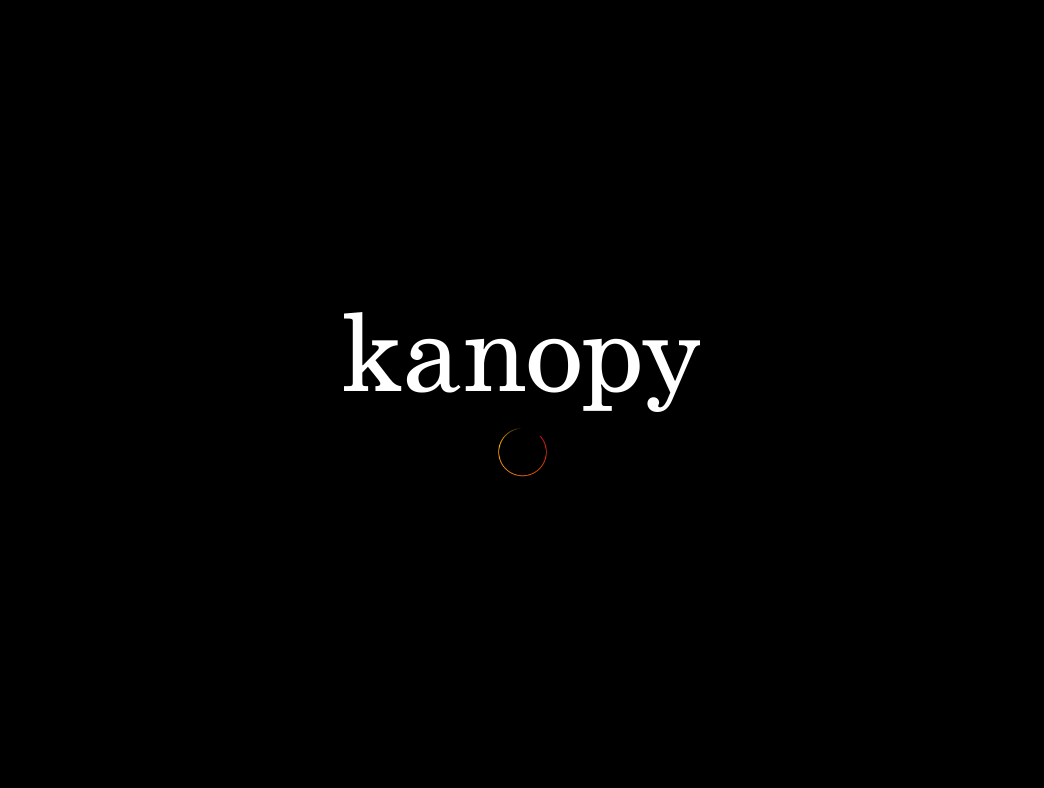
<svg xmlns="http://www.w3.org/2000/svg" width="1044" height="788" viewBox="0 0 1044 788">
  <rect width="100%" height="100%" fill="#000"/>
  <image x="344" y="312" width="356" height="100" href="images/1.png"/>
  <image x="498" y="428" width="49" height="49" href="images/2.png"/>
</svg>
